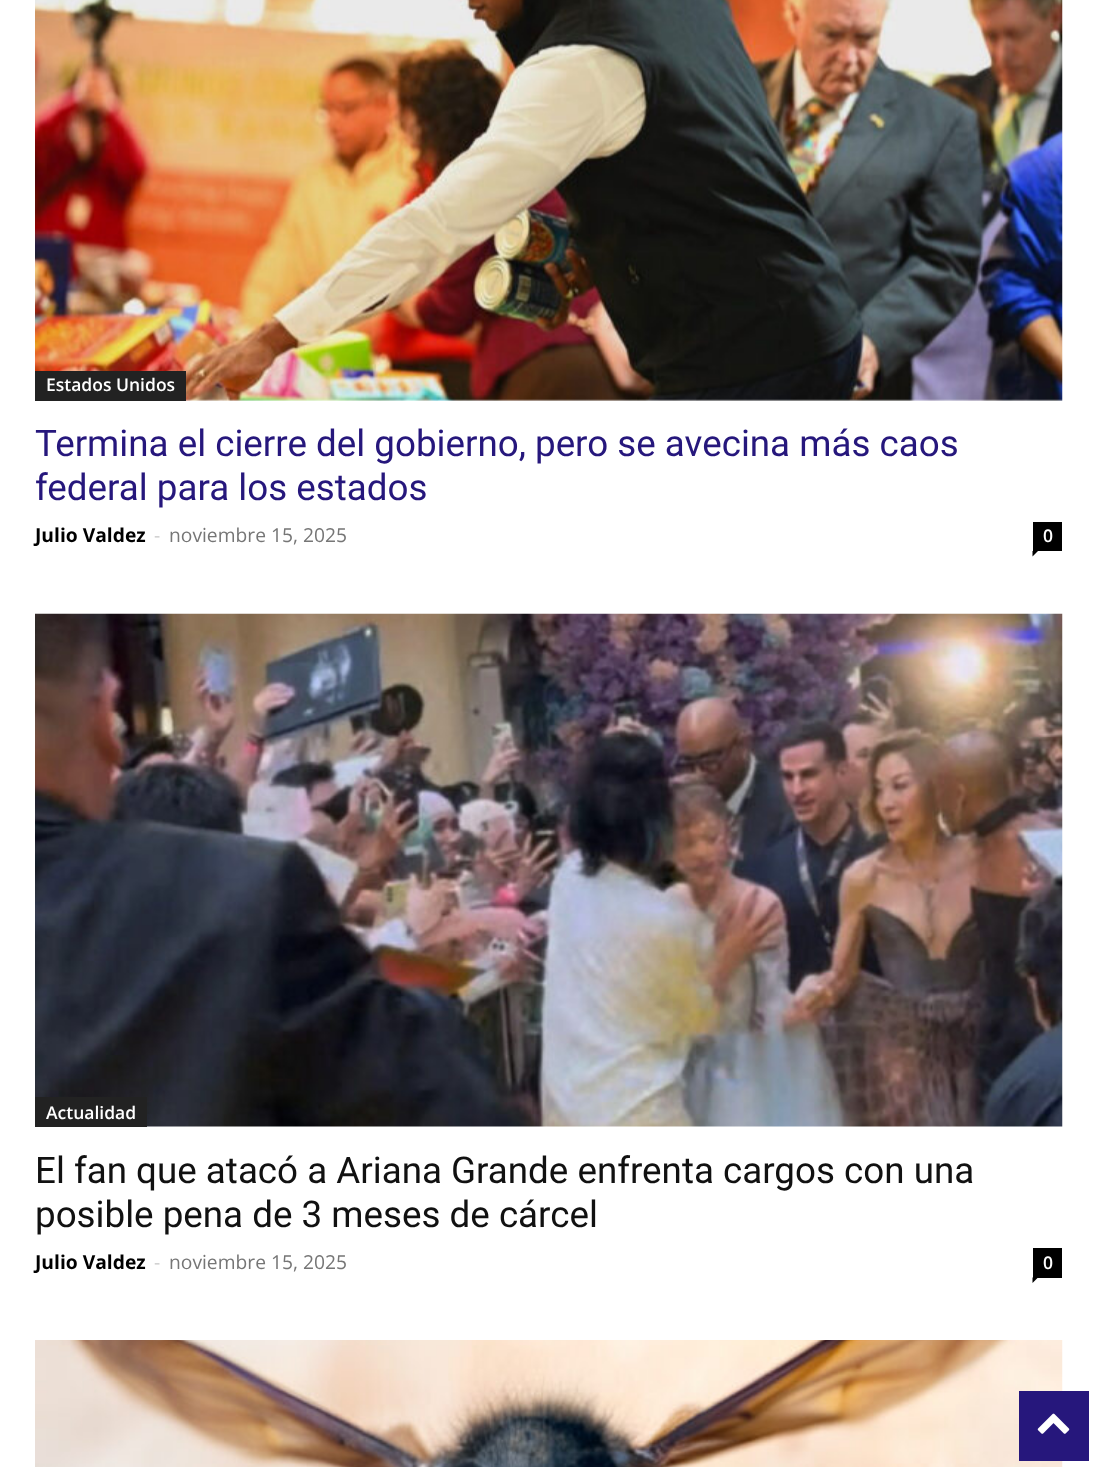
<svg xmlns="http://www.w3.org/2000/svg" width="1097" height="1467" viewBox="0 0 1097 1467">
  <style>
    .t1 { font: 600 17.5px Open Sans; fill: #fff; }
    .t2 { font: 36.75px Roboto; fill: #26177c; }
    .t3 { font: bold 19.25px Open Sans; fill: #000; }
    .t4 { font: 19.25px Open Sans; fill: #ccc; }
    .t5 { font: 19.25px Open Sans; fill: #767676; }
    .t6 { font: 36.75px Roboto; fill: #111; }
  </style>
  <rect width="100%" height="100%" fill="#fff"/>
  <image x="35" y="0" width="1028" height="401" href="images/1.png"/>
  <rect x="35" y="371" width="151" height="30" fill="#222"/>
  <text x="46" y="391" class="t1">Estados Unidos</text>
  <text x="35" y="456" class="t2">Termina el cierre del gobierno, pero se avecina más caos</text>
  <text x="35" y="500" class="t2">federal para los estados</text>
  <text x="35" y="542" class="t3">Julio Valdez</text>
  <text x="154" y="542" class="t4">-</text>
  <text x="169" y="542" class="t5">noviembre 15, 2025</text>
  <rect x="1033" y="522" width="29" height="29" fill="#000"/>
  <text x="1043" y="542" class="t1">0</text>
  <path d="M1032.5 551H1038L1032.5 556.5Z" fill="#000"/>
  <image x="35" y="613" width="1028" height="514" href="images/2.png"/>
  <rect x="35" y="1097" width="112" height="30" fill="#222"/>
  <text x="46" y="1119" class="t1">Actualidad</text>
  <text x="35" y="1183" class="t6">El fan que atacó a Ariana Grande enfrenta cargos con una</text>
  <text x="35" y="1227" class="t6">posible pena de 3 meses de cárcel</text>
  <text x="35" y="1269" class="t3">Julio Valdez</text>
  <text x="154" y="1269" class="t4">-</text>
  <text x="169" y="1269" class="t5">noviembre 15, 2025</text>
  <rect x="1033" y="1248" width="29" height="30" fill="#000"/>
  <text x="1043" y="1269" class="t1">0</text>
  <path d="M1032.5 1277.5H1038L1032.5 1283Z" fill="#000"/>
  <image x="35" y="1340" width="1028" height="127" href="images/3.png"/>
  <rect x="1019" y="1391" width="70" height="70" fill="#26177c"/>
  <image x="1037" y="1413" width="33" height="21" href="images/4.png"/>
</svg>
